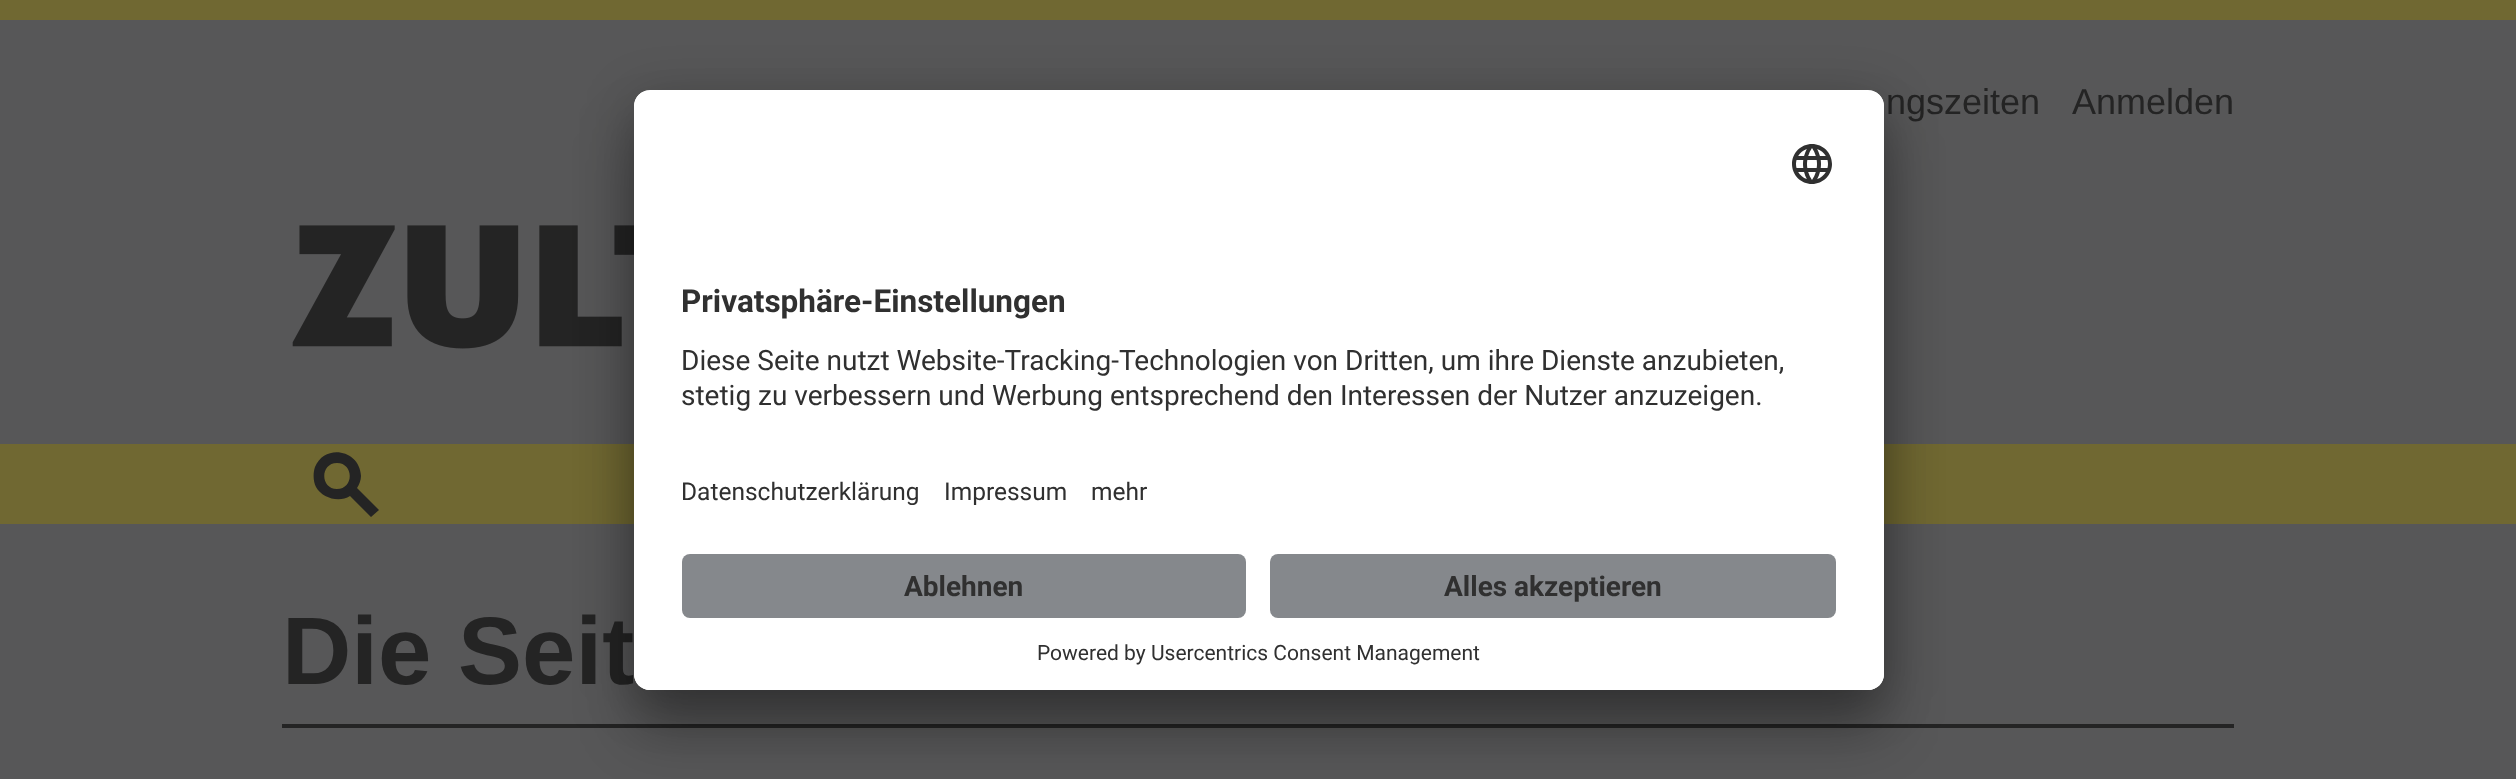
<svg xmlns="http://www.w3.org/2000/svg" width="2516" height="779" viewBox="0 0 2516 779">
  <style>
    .t1 { font: 36px Liberation Sans; fill: #242424; }
    .t2 { font: bold 96px Liberation Sans; fill: #242424; }
    .t3 { font: bold 31.5px Roboto; fill: #303030; }
    .t4 { font: 28px Roboto; fill: #303030; }
    .t5 { font: 24.5px Roboto; fill: #303030; }
    .t6 { font: bold 28px Roboto; fill: #303030; }
    .t7 { font: 21px Roboto; fill: #303030; }
  </style>
  <defs>
    <clipPath id="clip1"><rect x="634" y="90" width="1250" height="600" rx="16"/></clipPath>
    <clipPath id="clip2"><path d="M650 90H1868C1877 90 1884 97 1884 106V538H634V106C634 97 641 90 650 90Z"/></clipPath>
  </defs>
  <rect width="100%" height="100%" fill="#575758"/>
  <rect x="0" y="0" width="2516" height="20" fill="#706832"/>
  <text x="1886" y="114" class="t1">ngszeiten</text>
  <text x="2072" y="114" class="t1">Anmelden</text>
  <image x="292" y="225" width="342" height="124" href="images/1.png"/>
  <rect x="0" y="444" width="2516" height="80" fill="#706832"/>
  <path d="M371 517L350 496C339 503 322 498 316 487C313 481 313 473 315 467C325 443 360 450 361 476C361 480 359 485 357 488L379 510ZM337 489C354 489 354 463 337 463C320 463 320 489 337 489Z" fill="#242424"/>
  <rect x="282" y="724" width="1952" height="4" fill="#242424"/>
  <text x="282" y="684" class="t2">Die Seit</text>
  <rect x="634" y="130" width="1250" height="600" rx="16" fill="#0000004d" filter="blur(28px)"/>
  <rect x="634" y="100" width="1250" height="600" rx="16" fill="#00000038" filter="blur(26px)"/>
  <rect x="634" y="90" width="1250" height="600" rx="16" fill="#fff"/>
  <g clip-path="url(#clip1)">
    <g clip-path="url(#clip2)">
      <rect x="634" y="92" width="1250" height="446" fill="#fff"/>
    </g>
  </g>
  <image x="1792" y="144" width="40" height="40" href="images/2.png"/>
  <text x="681" y="312" class="t3">Privatsphäre-Einstellungen</text>
  <text x="681" y="370" class="t4">Diese Seite nutzt Website-Tracking-Technologien von Dritten, um ihre Dienste anzubieten,</text>
  <text x="681" y="405" class="t4">stetig zu verbessern und Werbung entsprechend den Interessen der Nutzer anzuzeigen.</text>
  <text x="681" y="500" class="t5">Datenschutzerklärung</text>
  <text x="944" y="500" class="t5">Impressum</text>
  <text x="1091" y="500" class="t5">mehr</text>
  <path d="M634 538H1884V674C1884 683 1877 690 1868 690H650C641 690 634 683 634 674Z" fill="#fff"/>
  <rect x="682" y="554" width="564" height="64" rx="8" fill="#85888c"/>
  <text x="904" y="596" class="t6">Ablehnen</text>
  <rect x="1270" y="554" width="566" height="64" rx="8" fill="#85888c"/>
  <text x="1444" y="596" class="t6">Alles akzeptieren</text>
  <text x="1037" y="660" class="t7">Powered by Usercentrics Consent Management</text>
</svg>
